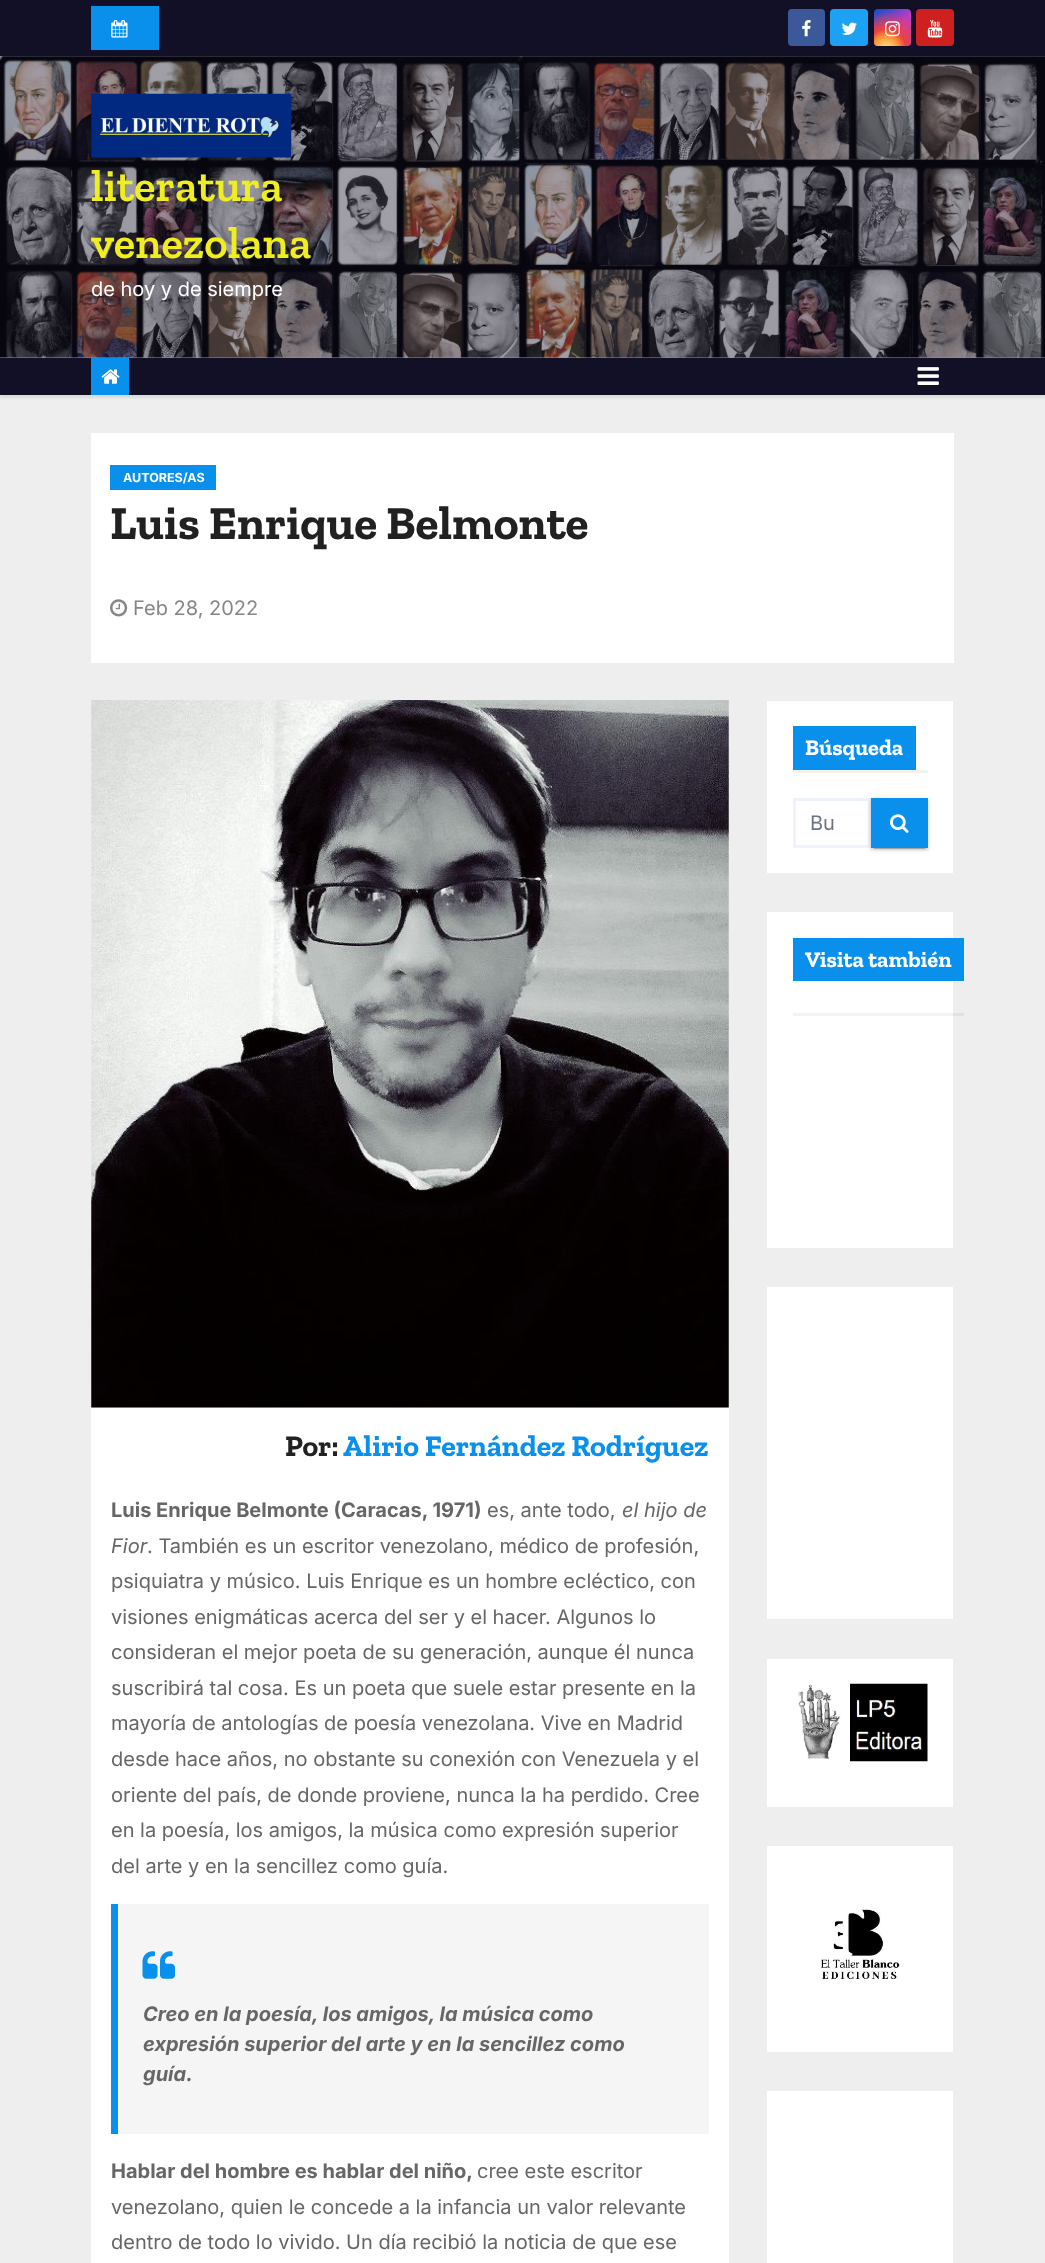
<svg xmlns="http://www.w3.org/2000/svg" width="1045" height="2263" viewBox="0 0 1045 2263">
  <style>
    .t1 { font: 600 45px Zilla Slab; fill: #ee2; }
    .t2 { font: 20px Inter; fill: #fff; }
    .t3 { font: bold 12.5px Inter; fill: #fff; }
    .t4 { font: bold 47.5px Zilla Slab; fill: #212121; }
    .t5 { font: 20px Inter; fill: #868686; }
    .t6 { font: bold 22.5px Zilla Slab; fill: #fff; }
    .t7 { font: 20px Inter; fill: #6c757d; }
    .t8 { font: bold 30px Zilla Slab; fill: #212121; }
    .t9 { font: bold 30px Zilla Slab; fill: #0890ec; }
    .t10 { font: bold 20px Inter; fill: #666; }
    .t11 { font: 20px Inter; fill: #666; }
    .t12 { font: italic 20px Inter; fill: #666; }
    .t13 { font: italic bold 20px Inter; fill: #666; }
  </style>
  <defs>
    <linearGradient id="g1" gradientUnits="userSpaceOnUse" x1="874" y1="9" x2="911" y2="46"><stop offset="0.12" stop-color="#234bd7"/><stop offset="0.58" stop-color="#c33cbe"/></linearGradient>
    <radialGradient id="g2" gradientUnits="userSpaceOnUse" cx="886" cy="49" r="47"><stop offset="0" stop-color="#ffe17d"/><stop offset="0.1" stop-color="#ffcd69"/><stop offset="0.28" stop-color="#fa9137"/><stop offset="0.42" stop-color="#eb4141"/><stop offset="0.82" stop-color="#eb4141" stop-opacity="0"/></radialGradient>
  </defs>
  <rect width="100%" height="100%" fill="#eee"/>
  <rect x="0" y="56" width="1045" height="302" fill="#96959e"/>
  <rect x="0" y="0" width="1045" height="56" fill="#121026"/>
  <rect x="91" y="6" width="68" height="44" fill="#0890ec"/>
  <image x="111" y="20" width="17" height="18" href="images/1.png"/>
  <rect x="788" y="9" width="37" height="37" rx="4" fill="#3b5998"/>
  <image x="802" y="20" width="9" height="17" href="images/2.png"/>
  <rect x="830" y="9" width="38" height="37" rx="4" fill="#1da1f2"/>
  <image x="841" y="22" width="16" height="13" href="images/3.png"/>
  <rect x="874" y="9" width="37" height="37" rx="4" fill="url(#g1)"/>
  <rect x="874" y="9" width="37" height="37" rx="4" fill="url(#g2)"/>
  <image x="885" y="21" width="15" height="16" href="images/4.png"/>
  <rect x="916" y="9" width="38" height="37" rx="4" fill="#cd201f"/>
  <image x="927" y="20" width="16" height="18" href="images/5.png"/>
  <image x="0" y="56" width="1045" height="302" href="images/6.png"/>
  <image x="91" y="93" width="201" height="65" href="images/7.png"/>
  <text x="91" y="201" class="t1">literatura</text>
  <text x="91" y="258" class="t1">venezolana</text>
  <text x="91" y="296" class="t2">de hoy y de siempre</text>
  <rect x="0" y="360" width="1045" height="38" fill="#00000014" filter="blur(1px)"/>
  <rect x="0" y="358" width="1045" height="37" fill="#121026"/>
  <rect x="91" y="358" width="38" height="37" fill="#0890ec"/>
  <image x="101" y="369" width="19" height="15" href="images/8.png"/>
  <image x="917" y="367" width="22" height="18" href="images/9.png"/>
  <rect x="91" y="433" width="863" height="230" fill="#fff"/>
  <rect x="110" y="465" width="106" height="25" fill="#0890ec"/>
  <text x="123" y="482" class="t3">AUTORES/AS</text>
  <text x="110" y="539" class="t4">Luis Enrique Belmonte</text>
  <image x="110" y="599" width="18" height="18" href="images/10.png"/>
  <text x="133" y="615" class="t5">Feb 28, 2022</text>
  <rect x="767" y="701" width="186" height="172" fill="#fff"/>
  <rect x="793" y="770" width="135" height="3" fill="#f2f2f2"/>
  <rect x="793" y="726" width="123" height="44" fill="#0890ec"/>
  <text x="805" y="755" class="t6">Búsqueda</text>
  <rect x="794.5" y="799.5" width="75" height="47" fill="none" stroke="#eef3fb" stroke-width="3"/>
  <text x="810" y="830" class="t7">Bu</text>
  <rect x="871" y="799" width="57" height="50" fill="#0000001f" filter="blur(3px)"/>
  <rect x="874" y="804" width="51" height="45" fill="#00000033" filter="blur(0.5px)"/>
  <rect x="871" y="800" width="57" height="50" fill="#00000024" filter="blur(1px)"/>
  <rect x="871" y="798" width="57" height="50" fill="#0890ec"/>
  <image x="890" y="814" width="19" height="19" href="images/11.png"/>
  <rect x="767" y="912" width="186" height="336" fill="#fff"/>
  <rect x="793" y="1013" width="171" height="3" fill="#0000000d"/>
  <rect x="793" y="938" width="171" height="43" fill="#0890ec"/>
  <text x="805" y="967" class="t6">Visita también</text>
  <rect x="767" y="1287" width="186" height="332" fill="#fff"/>
  <rect x="767" y="1659" width="186" height="148" fill="#fff"/>
  <image x="798" y="1683" width="130" height="79" href="images/12.png"/>
  <rect x="767" y="1846" width="186" height="206" fill="#fff"/>
  <image x="821" y="1908" width="80" height="71" href="images/13.png"/>
  <rect x="767" y="2091" width="186" height="172" fill="#fff"/>
  <image x="91" y="700" width="638" height="708" href="images/14.png"/>
  <rect x="91" y="1408" width="638" height="855" fill="#fff"/>
  <text x="285" y="1456" class="t8">Por:</text>
  <text x="343" y="1456" class="t9">Alirio Fernández Rodríguez</text>
  <text x="111" y="1517" class="t10">Luis Enrique Belmonte (Caracas, 1971)</text>
  <text x="487" y="1517" class="t11">es, ante todo,</text>
  <text x="622" y="1517" class="t12">el hijo de</text>
  <text x="111" y="1553" class="t12">Fior</text>
  <text x="147" y="1553" class="t11">. También es un escritor venezolano, médico de profesión,</text>
  <text x="111" y="1588" class="t11">psiquiatra y músico. Luis Enrique es un hombre ecléctico, con</text>
  <text x="111" y="1624" class="t11">visiones enigmáticas acerca del ser y el hacer. Algunos lo</text>
  <text x="111" y="1659" class="t11">consideran el mejor poeta de su generación, aunque él nunca</text>
  <text x="111" y="1695" class="t11">suscribirá tal cosa. Es un poeta que suele estar presente en la</text>
  <text x="111" y="1730" class="t11">mayoría de antologías de poesía venezolana. Vive en Madrid</text>
  <text x="111" y="1766" class="t11">desde hace años, no obstante su conexión con Venezuela y el</text>
  <text x="111" y="1802" class="t11">oriente del país, de donde proviene, nunca la ha perdido. Cree</text>
  <text x="111" y="1837" class="t11">en la poesía, los amigos, la música como expresión superior</text>
  <text x="111" y="1873" class="t11">del arte y en la sencillez como guía.</text>
  <rect x="118" y="1904" width="591" height="230" fill="#f5f5f5"/>
  <rect x="111" y="1904" width="7" height="230" fill="#0890ec"/>
  <image x="142" y="1951" width="33" height="28" href="images/15.png"/>
  <text x="143" y="2021" class="t13">Creo en la poesía, los amigos, la música como</text>
  <text x="143" y="2051" class="t13">expresión superior del arte y en la sencillez como</text>
  <text x="143" y="2081" class="t13">guía.</text>
  <text x="111" y="2178" class="t10">Hablar del hombre es hablar del niño,</text>
  <text x="477" y="2178" class="t11">cree este escritor</text>
  <text x="111" y="2214" class="t11">venezolano, quien le concede a la infancia un valor relevante</text>
  <text x="111" y="2249" class="t11">dentro de todo lo vivido. Un día recibió la noticia de que ese</text>
</svg>
